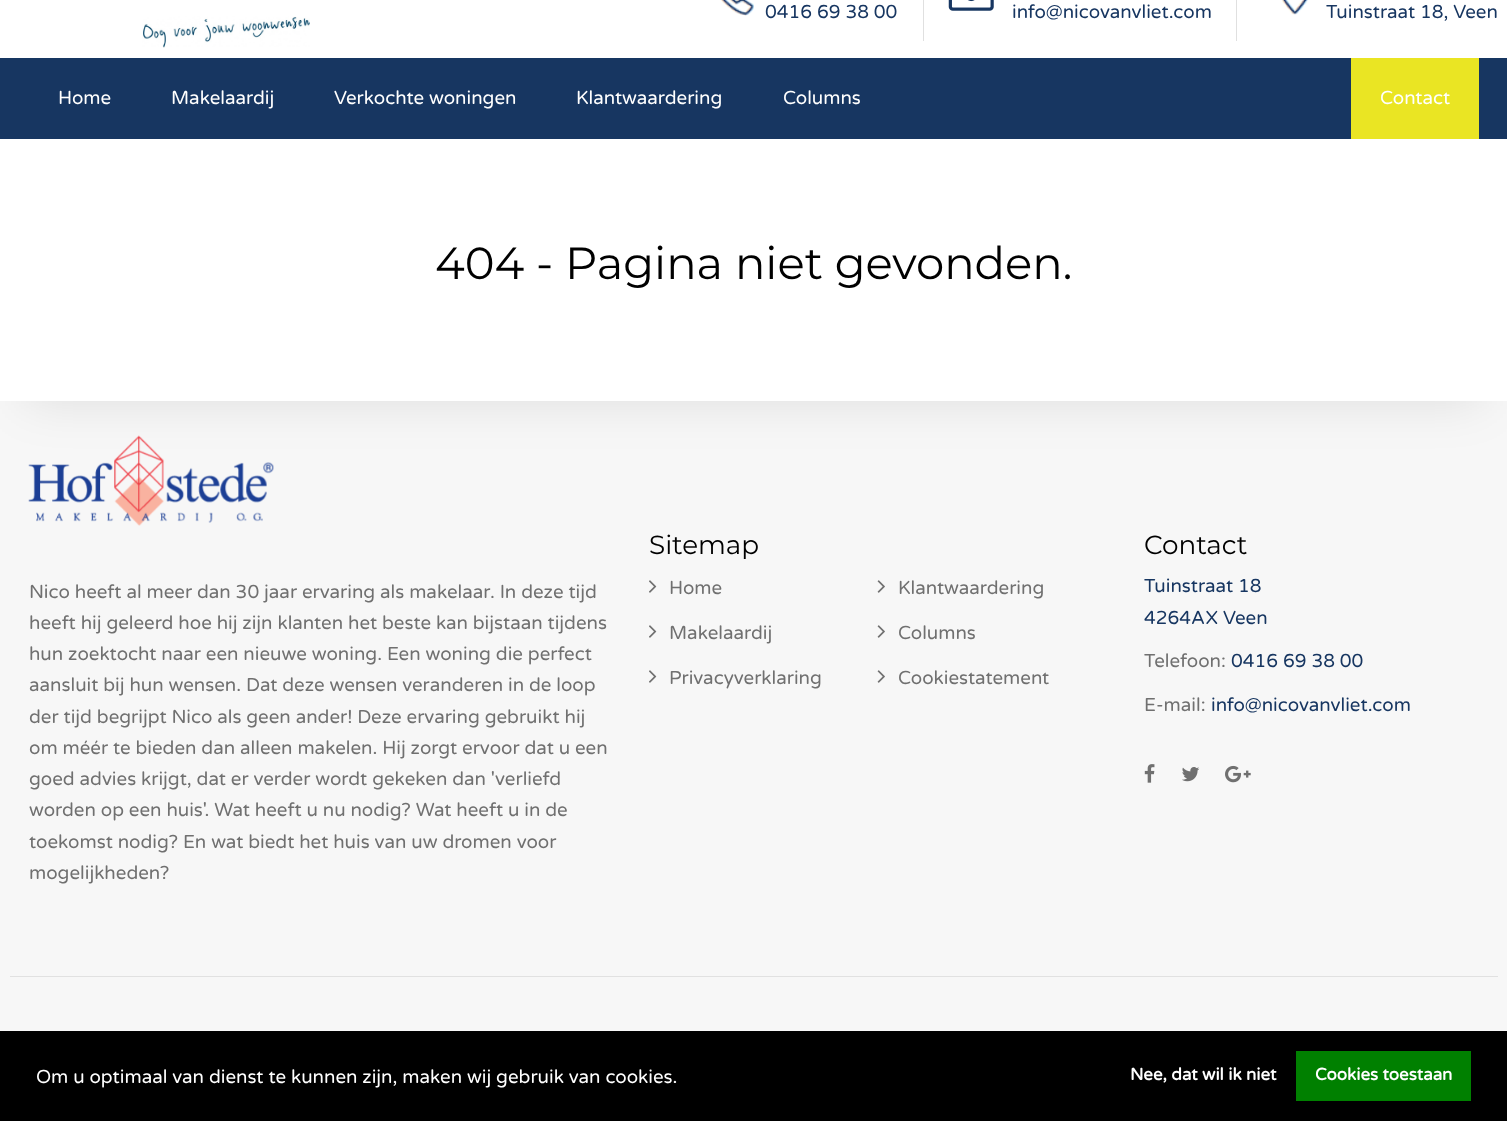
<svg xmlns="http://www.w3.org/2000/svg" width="1507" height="1121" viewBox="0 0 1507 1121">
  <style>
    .t1 { font: 18.75px Varela Round; fill: #173661; }
    .t2 { font: 18.75px Varela Round; fill: #fff; }
    .t3 { font: 45px Montserrat; fill: #000; }
    .t4 { font: 18.75px Varela Round; fill: #707070; }
    .t5 { font: 26.25px Montserrat; fill: #000; }
    .t6 { font: bold 16.9px Varela Round; fill: #fff; }
  </style>
  <rect width="100%" height="100%" fill="#f7f7f7"/>
  <image x="28" y="435" width="246" height="91" href="images/5.png"/>
  <rect x="25" y="201" width="1458" height="200" fill="#0000001a" filter="blur(25px)"/>
  <rect x="0" y="0" width="1507" height="401" fill="#fff"/>
  <rect x="923" y="0" width="1" height="41" fill="#e0e0e0"/>
  <image x="721" y="0" width="33" height="16" href="images/1.png"/>
  <text x="765" y="18" class="t1">0416 69 38 00</text>
  <rect x="1236" y="0" width="1" height="41" fill="#e0e0e0"/>
  <image x="948" y="0" width="46" height="11" href="images/2.png"/>
  <text x="1012" y="18" class="t1">info@nicovanvliet.com</text>
  <image x="1281" y="0" width="27" height="15" href="images/3.png"/>
  <text x="1326" y="18" class="t1">Tuinstraat 18, Veen</text>
  <image x="142" y="16" width="168" height="32" href="images/4.png"/>
  <rect x="0" y="58" width="1507" height="81" fill="#173661"/>
  <text x="58" y="104" class="t2">Home</text>
  <text x="171" y="104" class="t2">Makelaardij</text>
  <text x="334" y="104" class="t2">Verkochte woningen</text>
  <text x="576" y="104" class="t2">Klantwaardering</text>
  <text x="783" y="104" class="t2">Columns</text>
  <rect x="1351" y="58" width="128" height="81" fill="#eae523"/>
  <text x="1380" y="104" class="t2">Contact</text>
  <text x="435" y="279" class="t3">404 - Pagina niet gevonden.</text>
  <text x="29" y="598" class="t4">Nico heeft al meer dan 30 jaar ervaring als makelaar. In deze tijd</text>
  <text x="29" y="629" class="t4">heeft hij geleerd hoe hij zijn klanten het beste kan bijstaan tijdens</text>
  <text x="29" y="660" class="t4">hun zoektocht naar een nieuwe woning. Een woning die perfect</text>
  <text x="29" y="691" class="t4">aansluit bij hun wensen. Dat deze wensen veranderen in de loop</text>
  <text x="29" y="723" class="t4">der tijd begrijpt Nico als geen ander! Deze ervaring gebruikt hij</text>
  <text x="29" y="754" class="t4">om méér te bieden dan alleen makelen. Hij zorgt ervoor dat u een</text>
  <text x="29" y="785" class="t4">goed advies krijgt, dat er verder wordt gekeken dan 'verliefd</text>
  <text x="29" y="816" class="t4">worden op een huis'. Wat heeft u nu nodig? Wat heeft u in de</text>
  <text x="29" y="848" class="t4">toekomst nodig? En wat biedt het huis van uw dromen voor</text>
  <text x="29" y="879" class="t4">mogelijkheden?</text>
  <text x="649" y="554" class="t5">Sitemap</text>
  <image x="649" y="580" width="8" height="13" href="images/6.png"/>
  <text x="669" y="594" class="t4">Home</text>
  <image x="877" y="580" width="8" height="13" href="images/7.png"/>
  <text x="898" y="594" class="t4">Klantwaardering</text>
  <image x="649" y="625" width="8" height="13" href="images/6.png"/>
  <text x="669" y="639" class="t4">Makelaardij</text>
  <image x="877" y="625" width="8" height="13" href="images/7.png"/>
  <text x="898" y="639" class="t4">Columns</text>
  <image x="649" y="670" width="8" height="13" href="images/6.png"/>
  <text x="669" y="684" class="t4">Privacyverklaring</text>
  <image x="877" y="670" width="8" height="13" href="images/7.png"/>
  <text x="898" y="684" class="t4">Cookiestatement</text>
  <text x="1144" y="554" class="t5">Contact</text>
  <text x="1144" y="592" class="t1">Tuinstraat 18</text>
  <text x="1144" y="624" class="t1">4264AX Veen</text>
  <text x="1144" y="667" class="t4">Telefoon:</text>
  <text x="1231" y="667" class="t1">0416 69 38 00</text>
  <text x="1144" y="711" class="t4">E-mail:</text>
  <text x="1211" y="711" class="t1">info@nicovanvliet.com</text>
  <image x="1144" y="764" width="11" height="19" href="images/8.png"/>
  <image x="1182" y="767" width="18" height="15" href="images/9.png"/>
  <image x="1225" y="765" width="26" height="18" href="images/10.png"/>
  <rect x="10" y="976" width="1488" height="1" fill="#e1e1e1"/>
  <rect x="0" y="1031" width="1507" height="90" fill="#000"/>
  <text x="36" y="1083" class="t2">Om u optimaal van dienst te kunnen zijn, maken wij gebruik van cookies.</text>
  <text x="1130" y="1080" class="t6">Nee, dat wil ik niet</text>
  <rect x="1296" y="1051" width="175" height="50" fill="#008000"/>
  <text x="1315" y="1080" class="t6">Cookies toestaan</text>
</svg>
